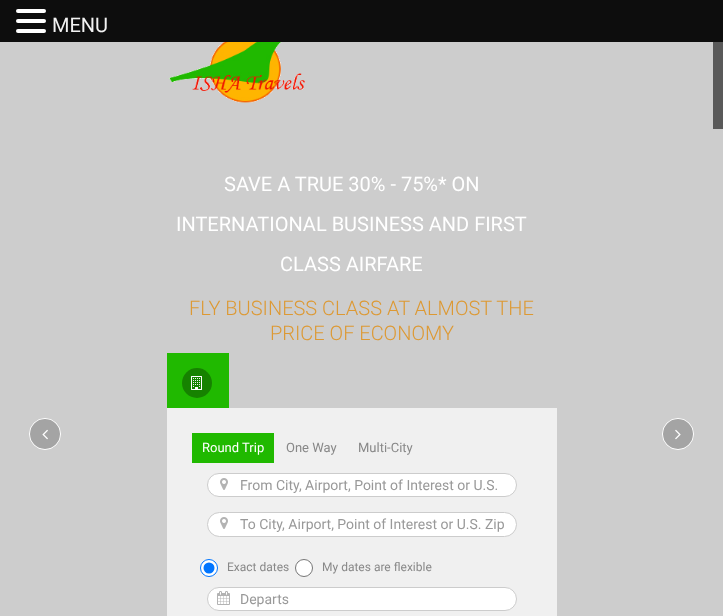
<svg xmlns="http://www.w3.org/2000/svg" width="723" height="616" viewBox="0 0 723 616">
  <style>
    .t1 { font: 20px Roboto; fill: #f2f2f2; }
    .t2 { font: 20px Roboto; fill: #fff; }
    .t3 { font: 300 20px Roboto; fill: #d93; }
    .t4 { font: 13px Roboto; fill: #fff; }
    .t5 { font: 13px Roboto; fill: #888; }
    .t6 { font: 14px Roboto; fill: #999; }
    .t7 { font: 12px Roboto; fill: #888; }
  </style>
  <rect width="100%" height="100%" fill="#cdcdcd"/>
  <rect x="0" y="0" width="723" height="42" fill="#0d0d0d"/>
  <rect x="16" y="9" width="30" height="4" rx="2" fill="#fff"/>
  <rect x="16" y="19" width="30" height="4" rx="2" fill="#fff"/>
  <rect x="16" y="29" width="30" height="4" rx="2" fill="#fff"/>
  <text x="52" y="32" class="t1">MENU</text>
  <image x="169" y="42" width="136" height="61" href="images/1.png"/>
  <rect x="713" y="42" width="10" height="87" fill="#595959"/>
  <text x="224" y="191" class="t2">SAVE A TRUE 30% - 75%* ON</text>
  <text x="176" y="231" class="t2">INTERNATIONAL BUSINESS AND FIRST</text>
  <text x="280" y="271" class="t2">CLASS AIRFARE</text>
  <text x="189" y="315" class="t3">FLY BUSINESS CLASS AT ALMOST THE</text>
  <text x="270" y="340" class="t3">PRICE OF ECONOMY</text>
  <rect x="167" y="353" width="62" height="55" fill="#20b900"/>
  <circle cx="197" cy="383" r="15" fill="#168200"/>
  <image x="191" y="376" width="11" height="14" href="images/2.png"/>
  <rect x="167" y="408" width="390" height="208" fill="#f0f0f0"/>
  <rect x="192" y="433" width="82" height="30" fill="#20b900"/>
  <text x="202" y="452" class="t4">Round Trip</text>
  <text x="286" y="452" class="t5">One Way</text>
  <text x="358" y="452" class="t5">Multi-City</text>
  <rect x="207.5" y="473.5" width="309" height="23" rx="11.5" fill="#fff" stroke="#ccc"/>
  <image x="220" y="478" width="8" height="12" href="images/3.png"/>
  <text x="240" y="490" class="t6">From City, Airport, Point of Interest or U.S.</text>
  <rect x="207.5" y="512.5" width="309" height="24" rx="12" fill="#fff" stroke="#ccc"/>
  <image x="220" y="517" width="8" height="12" href="images/3.png"/>
  <text x="240" y="529" class="t6">To City, Airport, Point of Interest or U.S. Zip</text>
  <circle cx="209" cy="568" r="8.5" fill="#fff" stroke="#0075ff"/>
  <circle cx="209" cy="568" r="5.5" fill="#0075ff"/>
  <text x="227" y="571" class="t7">Exact dates</text>
  <circle cx="304" cy="568" r="8.5" fill="#fff" stroke="#767676"/>
  <text x="322" y="571" class="t7">My dates are flexible</text>
  <rect x="207.5" y="587.5" width="309" height="23" rx="11.5" fill="#fff" stroke="#ccc"/>
  <image x="217" y="591" width="13" height="14" href="images/4.png"/>
  <text x="240" y="604" class="t6">Departs</text>
  <circle cx="45" cy="434" r="15.5" fill="none" stroke="#fff"/>
  <circle cx="45" cy="434" r="15" fill="#00000033"/>
  <image x="42" y="429" width="6" height="11" href="images/5.png"/>
  <circle cx="678" cy="434" r="15.5" fill="none" stroke="#fff"/>
  <circle cx="678" cy="434" r="15" fill="#00000033"/>
  <image x="675" y="429" width="6" height="11" href="images/6.png"/>
</svg>
